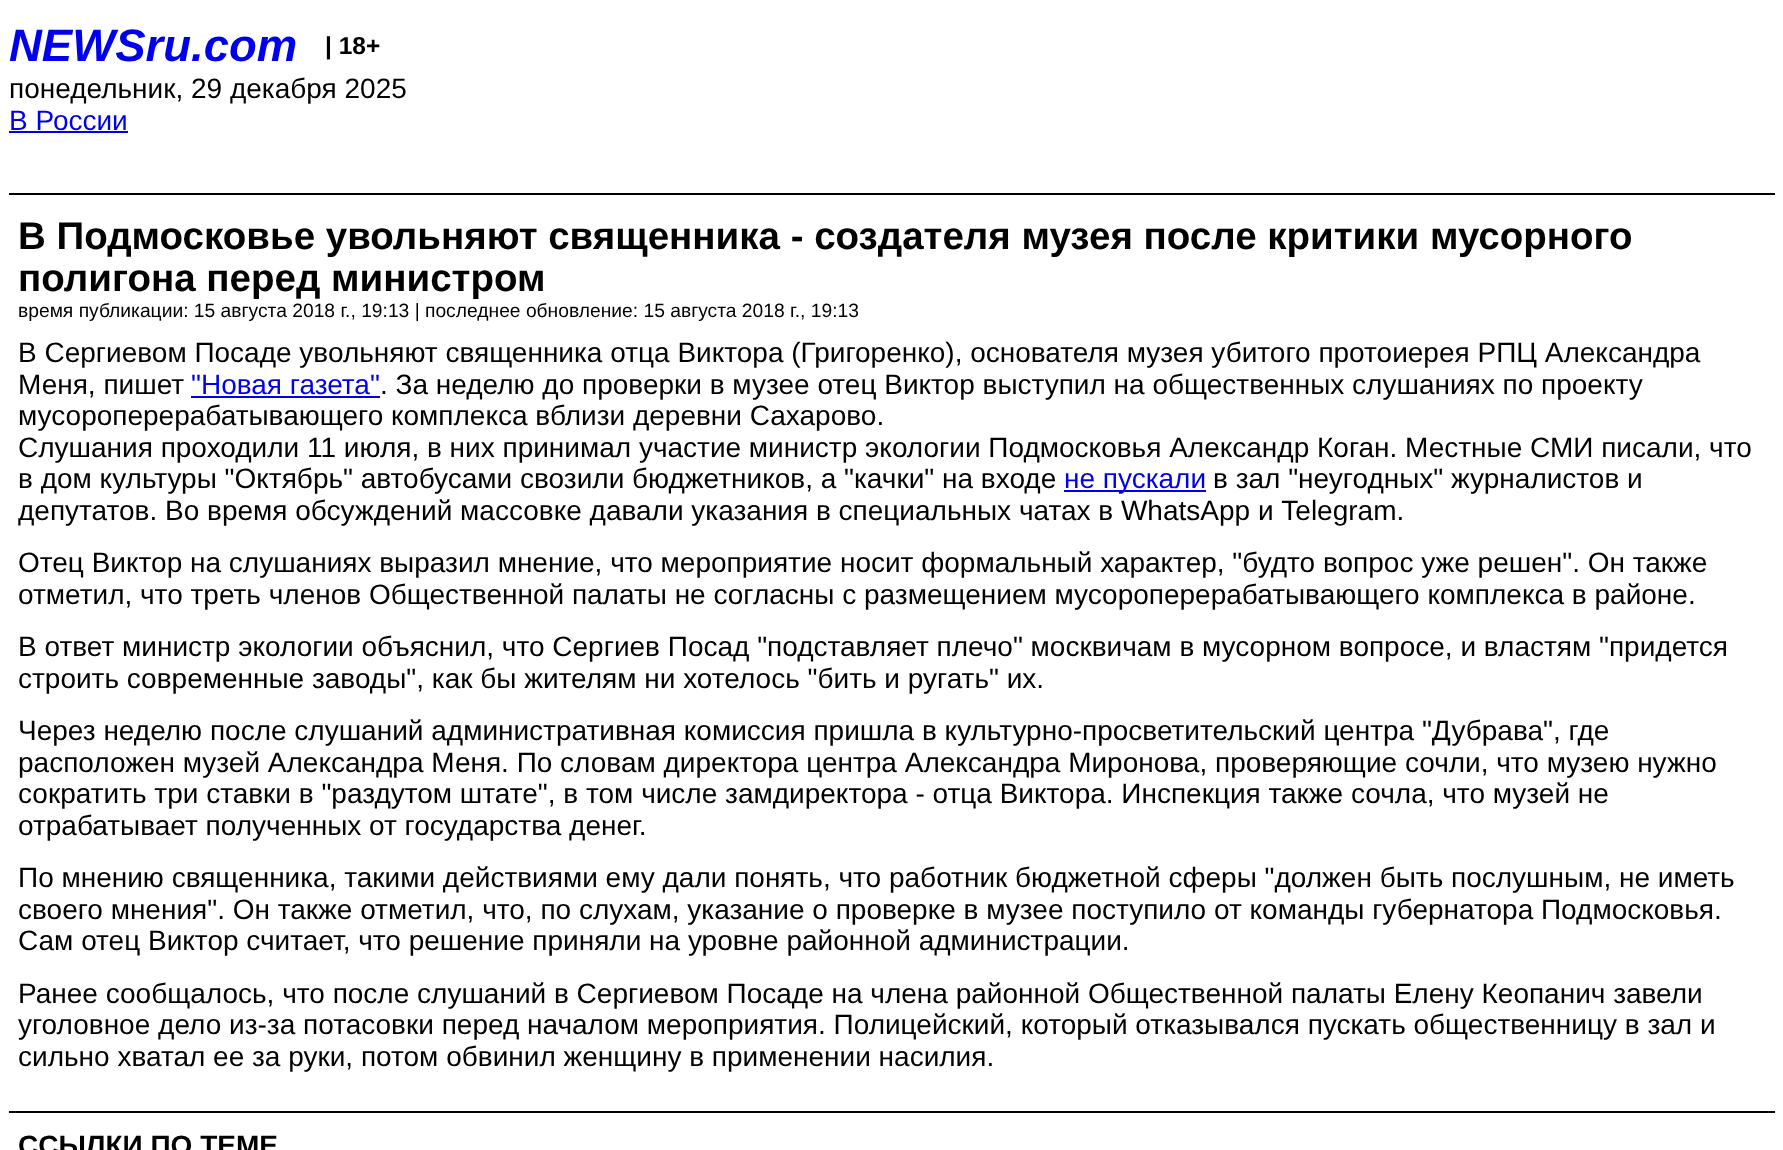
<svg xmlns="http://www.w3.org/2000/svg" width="1783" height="1150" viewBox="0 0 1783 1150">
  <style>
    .t1 { font: italic bold 45.5px Liberation Sans; fill: #00e; }
    .t2 { font: bold 24.5px Liberation Sans; fill: #000; }
    .t3 { font: 28px Liberation Sans; fill: #000; }
    .t4 { font: 28px Liberation Sans; fill: #00e; }
    .t5 { font: bold 38.5px Liberation Sans; fill: #000; }
    .t6 { font: 19.25px Liberation Sans; fill: #000; }
    .t7 { font: bold 28px Liberation Sans; fill: #000; }
  </style>
  <rect width="100%" height="100%" fill="#fff"/>
  <rect x="9" y="193" width="1766" height="2" fill="#000"/>
  <text x="9" y="61" class="t1">NEWSru.com</text>
  <text x="325" y="54" class="t2">| 18+</text>
  <text x="9" y="98" class="t3">понедельник, 29 декабря 2025</text>
  <text x="9" y="130" class="t4">В России</text>
  <rect x="9" y="131" width="119" height="2" fill="#00e"/>
  <rect x="9" y="1111" width="1766" height="2" fill="#000"/>
  <text x="18" y="249" class="t5">В Подмосковье увольняют священника - создателя музея после критики мусорного</text>
  <text x="18" y="291" class="t5">полигона перед министром</text>
  <text x="18" y="317" class="t6">время публикации: 15 августа 2018 г., 19:13 | последнее обновление: 15 августа 2018 г., 19:13</text>
  <text x="18" y="362" class="t3">В Сергиевом Посаде увольняют священника отца Виктора (Григоренко), основателя музея убитого протоиерея РПЦ Александра</text>
  <text x="18" y="394" class="t3">Меня, пишет</text>
  <text x="191" y="394" class="t4">"Новая газета"</text>
  <rect x="191" y="396" width="189" height="2" fill="#00e"/>
  <text x="380" y="394" class="t3">. За неделю до проверки в музее отец Виктор выступил на общественных слушаниях по проекту</text>
  <text x="18" y="425" class="t3">мусороперерабатывающего комплекса вблизи деревни Сахарово.</text>
  <text x="18" y="457" class="t3">Слушания проходили 11 июля, в них принимал участие министр экологии Подмосковья Александр Коган. Местные СМИ писали, что</text>
  <text x="18" y="488" class="t3">в дом культуры "Октябрь" автобусами свозили бюджетников, а "качки" на входе</text>
  <rect x="1064" y="490" width="142" height="2" fill="#00e"/>
  <text x="1064" y="488" class="t4">не пускали</text>
  <text x="1213" y="488" class="t3">в зал "неугодных" журналистов и</text>
  <text x="18" y="520" class="t3">депутатов. Во время обсуждений массовке давали указания в специальных чатах в WhatsApp и Telegram.</text>
  <text x="18" y="572" class="t3">Отец Виктор на слушаниях выразил мнение, что мероприятие носит формальный характер, "будто вопрос уже решен". Он также</text>
  <text x="18" y="604" class="t3">отметил, что треть членов Общественной палаты не согласны с размещением мусороперерабатывающего комплекса в районе.</text>
  <text x="18" y="656" class="t3">В ответ министр экологии объяснил, что Сергиев Посад "подставляет плечо" москвичам в мусорном вопросе, и властям "придется</text>
  <text x="18" y="688" class="t3">строить современные заводы", как бы жителям ни хотелось "бить и ругать" их.</text>
  <text x="18" y="740" class="t3">Через неделю после слушаний административная комиссия пришла в культурно-просветительский центра "Дубрава", где</text>
  <text x="18" y="772" class="t3">расположен музей Александра Меня. По словам директора центра Александра Миронова, проверяющие сочли, что музею нужно</text>
  <text x="18" y="803" class="t3">сократить три ставки в "раздутом штате", в том числе замдиректора - отца Виктора. Инспекция также сочла, что музей не</text>
  <text x="18" y="835" class="t3">отрабатывает полученных от государства денег.</text>
  <text x="18" y="887" class="t3">По мнению священника, такими действиями ему дали понять, что работник бюджетной сферы "должен быть послушным, не иметь</text>
  <text x="18" y="919" class="t3">своего мнения". Он также отметил, что, по слухам, указание о проверке в музее поступило от команды губернатора Подмосковья.</text>
  <text x="18" y="950" class="t3">Сам отец Виктор считает, что решение приняли на уровне районной администрации.</text>
  <text x="18" y="1003" class="t3">Ранее сообщалось, что после слушаний в Сергиевом Посаде на члена районной Общественной палаты Елену Кеопанич завели</text>
  <text x="18" y="1034" class="t3">уголовное дело из-за потасовки перед началом мероприятия. Полицейский, который отказывался пускать общественницу в зал и</text>
  <text x="18" y="1066" class="t3">сильно хватал ее за руки, потом обвинил женщину в применении насилия.</text>
  <text x="18" y="1155" class="t7">ССЫЛКИ ПО ТЕМЕ</text>
</svg>
